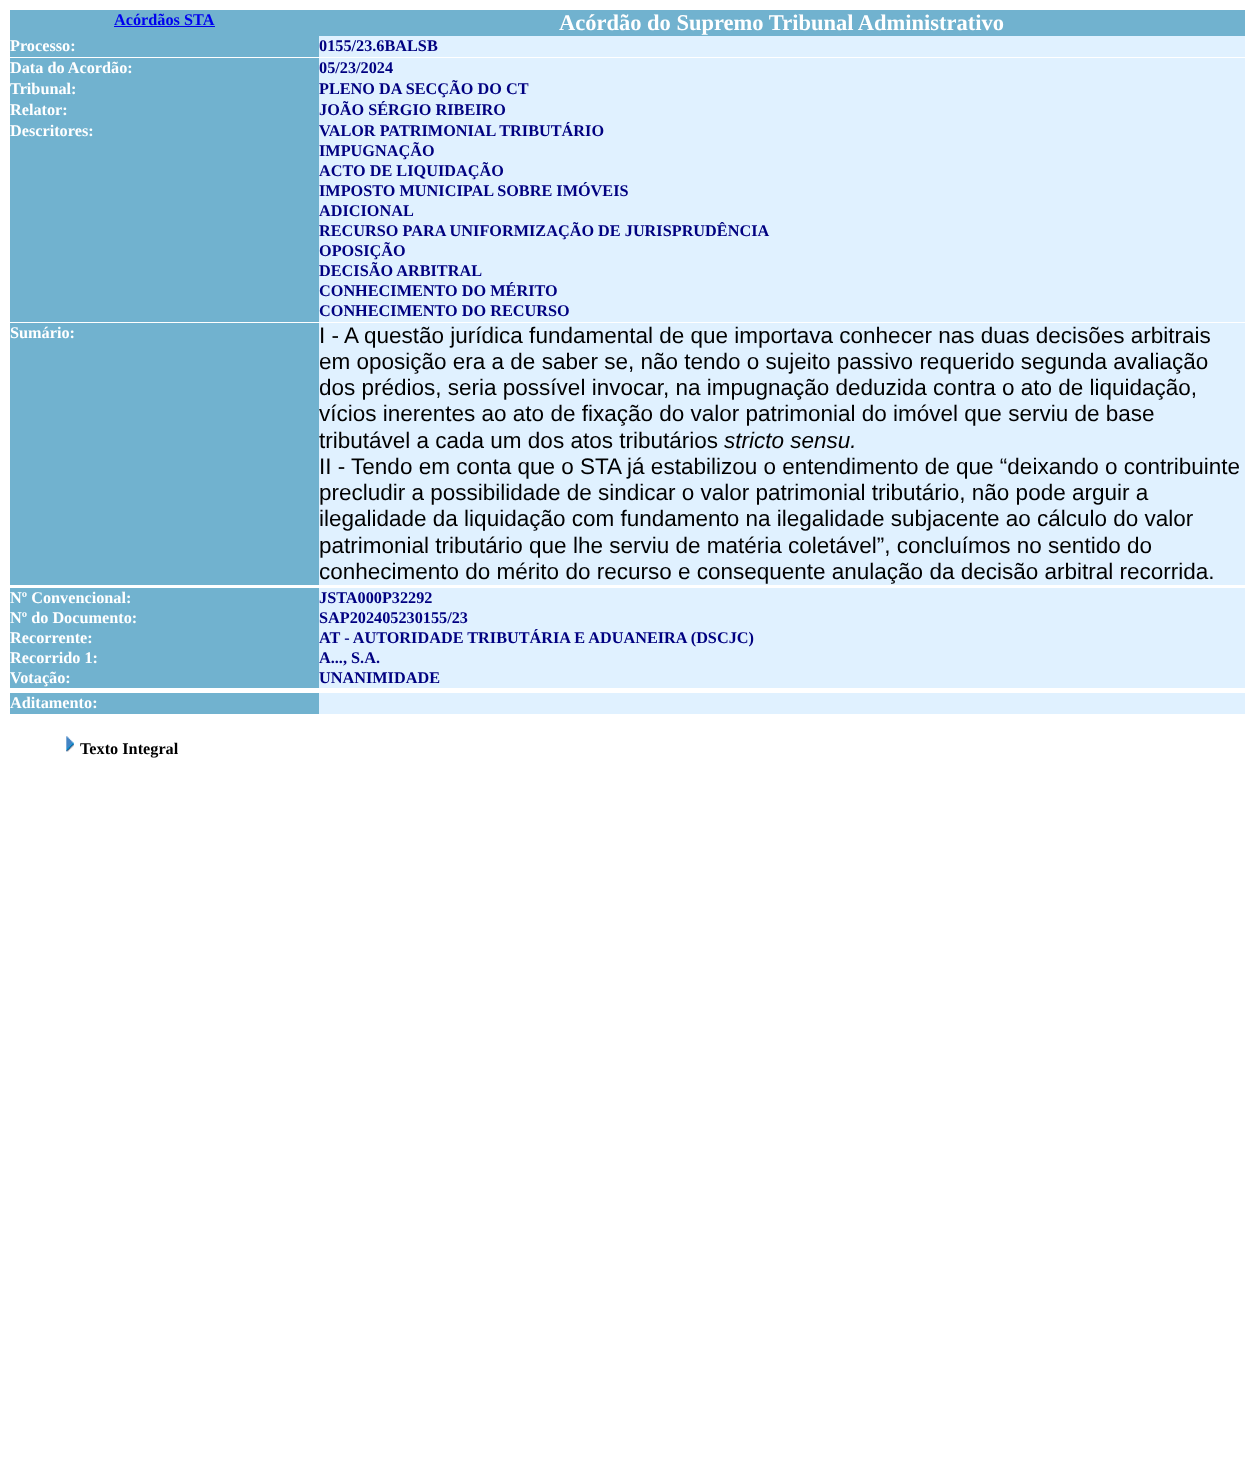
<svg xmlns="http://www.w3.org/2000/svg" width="1254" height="1466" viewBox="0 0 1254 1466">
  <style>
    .t1 { font: bold 16.25px Liberation Serif; fill: #00e; }
    .t2 { font: bold 22.5px Liberation Serif; fill: #fff; }
    .t3 { font: bold 16.25px Liberation Serif; fill: #fff; }
    .t4 { font: bold 16.25px Liberation Serif; fill: #000080; }
    .t5 { font: 22.5px Liberation Sans; fill: #000; }
    .t6 { font: italic 22.5px Liberation Sans; fill: #000; }
    .t7 { font: bold 16.25px Liberation Serif; fill: #000; }
  </style>
  <rect width="100%" height="100%" fill="#fff"/>
  <rect x="10" y="10" width="1235" height="26" fill="#71b2cf"/>
  <text x="114" y="25" class="t1">Acórdãos STA</text>
  <rect x="114" y="26" width="101" height="1" fill="#00e"/>
  <text x="559" y="30" class="t2">Acórdão do Supremo Tribunal Administrativo</text>
  <rect x="10" y="36" width="309" height="21" fill="#71b2cf"/>
  <text x="10" y="51" class="t3">Processo:</text>
  <rect x="319" y="36" width="926" height="21" fill="#e0f1ff"/>
  <text x="319" y="51" class="t4">0155/23.6BALSB</text>
  <rect x="10" y="58" width="309" height="264" fill="#71b2cf"/>
  <text x="10" y="73" class="t3">Data do Acordão:</text>
  <rect x="319" y="58" width="926" height="264" fill="#e0f1ff"/>
  <text x="319" y="73" class="t4">05/23/2024</text>
  <text x="10" y="94" class="t3">Tribunal:</text>
  <text x="319" y="94" class="t4">PLENO DA SECÇÃO DO CT</text>
  <text x="10" y="115" class="t3">Relator:</text>
  <text x="319" y="115" class="t4">JOÃO SÉRGIO RIBEIRO</text>
  <text x="10" y="136" class="t3">Descritores:</text>
  <text x="319" y="136" class="t4">VALOR PATRIMONIAL TRIBUTÁRIO</text>
  <text x="319" y="156" class="t4">IMPUGNAÇÃO</text>
  <text x="319" y="176" class="t4">ACTO DE LIQUIDAÇÃO</text>
  <text x="319" y="196" class="t4">IMPOSTO MUNICIPAL SOBRE IMÓVEIS</text>
  <text x="319" y="216" class="t4">ADICIONAL</text>
  <text x="319" y="236" class="t4">RECURSO PARA UNIFORMIZAÇÃO DE JURISPRUDÊNCIA</text>
  <text x="319" y="256" class="t4">OPOSIÇÃO</text>
  <text x="319" y="276" class="t4">DECISÃO ARBITRAL</text>
  <text x="319" y="296" class="t4">CONHECIMENTO DO MÉRITO</text>
  <text x="319" y="316" class="t4">CONHECIMENTO DO RECURSO</text>
  <rect x="10" y="323" width="309" height="262" fill="#71b2cf"/>
  <text x="10" y="338" class="t3">Sumário:</text>
  <rect x="319" y="323" width="926" height="262" fill="#e0f1ff"/>
  <text x="319" y="343" class="t5">I - A questão jurídica fundamental de que importava conhecer nas duas decisões arbitrais</text>
  <text x="319" y="369" class="t5">em oposição era a de saber se, não tendo o sujeito passivo requerido segunda avaliação</text>
  <text x="319" y="395" class="t5">dos prédios, seria possível invocar, na impugnação deduzida contra o ato de liquidação,</text>
  <text x="319" y="421" class="t5">vícios inerentes ao ato de fixação do valor patrimonial do imóvel que serviu de base</text>
  <text x="319" y="448" class="t5">tributável a cada um dos atos tributários</text>
  <text x="724" y="448" class="t6">stricto sensu.</text>
  <text x="319" y="474" class="t5">II - Tendo em conta que o STA já estabilizou o entendimento de que “deixando o contribuinte</text>
  <text x="319" y="500" class="t5">precludir a possibilidade de sindicar o valor patrimonial tributário, não pode arguir a</text>
  <text x="319" y="526" class="t5">ilegalidade da liquidação com fundamento na ilegalidade subjacente ao cálculo do valor</text>
  <text x="319" y="553" class="t5">patrimonial tributário que lhe serviu de matéria coletável”, concluímos no sentido do</text>
  <text x="319" y="579" class="t5">conhecimento do mérito do recurso e consequente anulação da decisão arbitral recorrida.</text>
  <rect x="10" y="588" width="309" height="100" fill="#71b2cf"/>
  <text x="10" y="603" class="t3">Nº Convencional:</text>
  <rect x="319" y="588" width="926" height="100" fill="#e0f1ff"/>
  <text x="319" y="603" class="t4">JSTA000P32292</text>
  <text x="10" y="623" class="t3">Nº do Documento:</text>
  <text x="319" y="623" class="t4">SAP202405230155/23</text>
  <text x="10" y="643" class="t3">Recorrente:</text>
  <text x="319" y="643" class="t4">AT - AUTORIDADE TRIBUTÁRIA E ADUANEIRA (DSCJC)</text>
  <text x="10" y="663" class="t3">Recorrido 1:</text>
  <text x="319" y="663" class="t4">A..., S.A.</text>
  <text x="10" y="683" class="t3">Votação:</text>
  <text x="319" y="683" class="t4">UNANIMIDADE</text>
  <rect x="10" y="693" width="309" height="21" fill="#71b2cf"/>
  <text x="10" y="708" class="t3">Aditamento:</text>
  <rect x="319" y="693" width="926" height="21" fill="#e0f1ff"/>
  <image x="66" y="736" width="8" height="16" href="images/1.png"/>
  <text x="80" y="754" class="t7">Texto Integral</text>
</svg>
